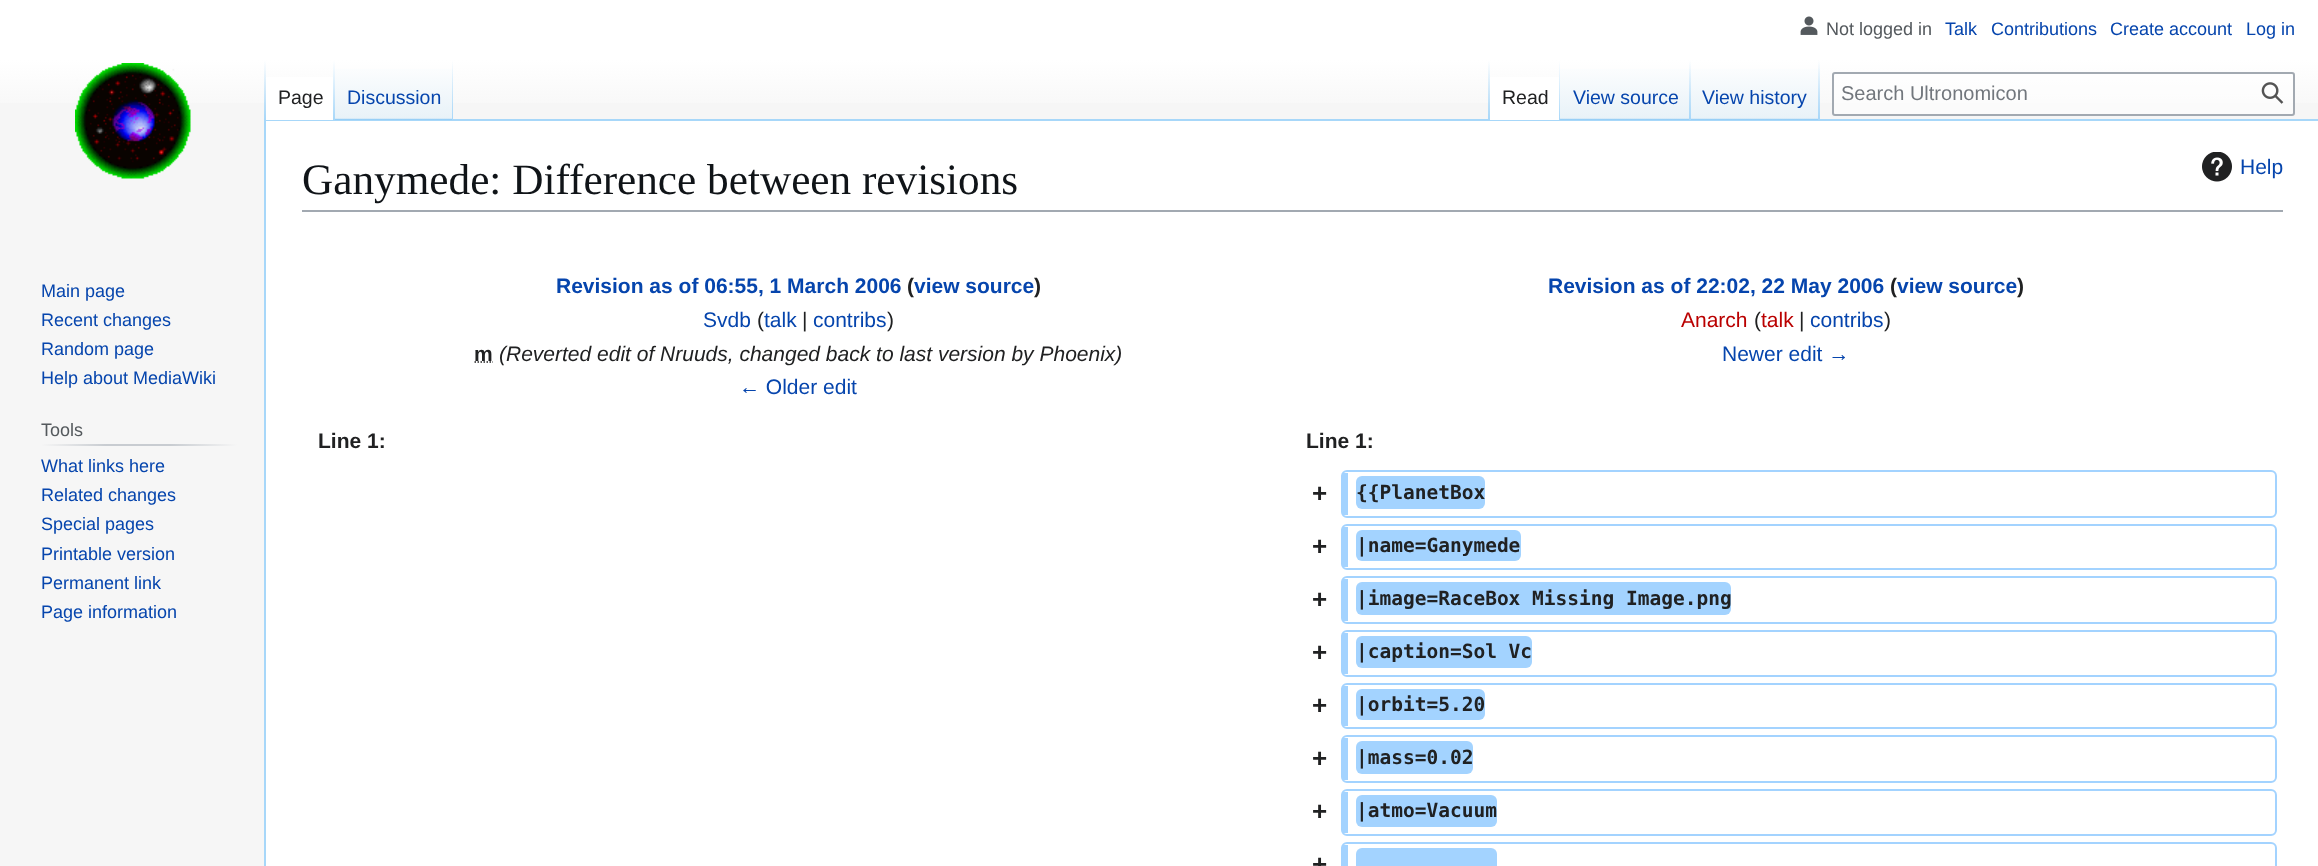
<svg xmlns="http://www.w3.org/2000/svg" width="2318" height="866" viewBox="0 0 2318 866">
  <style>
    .t1 { font: 18px Liberation Sans; fill: #54595d; }
    .t2 { font: 18px Liberation Sans; fill: #0645ad; }
    .t3 { font: 19.5px Liberation Sans; fill: #202122; }
    .t4 { font: 19.5px Liberation Sans; fill: #0645ad; }
    .t5 { font: 20px Liberation Sans; fill: #72777d; }
    .t6 { font: 43.25px Liberation Serif; fill: #101418; }
    .t7 { font: 21px Liberation Sans; fill: #0645ad; }
    .t8 { font: bold 21px Liberation Sans; fill: #0645ad; }
    .t9 { font: bold 21px Liberation Sans; fill: #202122; }
    .t10 { font: 21px Liberation Sans; fill: #202122; }
    .t11 { font: italic 21px Liberation Sans; fill: #202122; }
    .t12 { font: 21px Liberation Sans; fill: #ba0000; }
    .t13 { font: bold 26px Liberation Sans; fill: #202122; }
    .t14 { font: bold 19.5px DejaVu Sans Mono; fill: #202122; }
  </style>
  <defs>
    <linearGradient id="g1" gradientUnits="userSpaceOnUse" x1="1160" y1="0" x2="1160" y2="120"><stop offset="0.5" stop-color="#fff"/><stop offset="1" stop-color="#f6f6f6"/></linearGradient>
    <linearGradient id="g2" gradientUnits="userSpaceOnUse" x1="265" y1="60" x2="265" y2="120"><stop offset="0" stop-color="#a7d7f9" stop-opacity="0"/><stop offset="1" stop-color="#a7d7f9"/></linearGradient>
    <linearGradient id="g3" gradientUnits="userSpaceOnUse" x1="334" y1="60" x2="334" y2="120"><stop offset="0" stop-color="#fff"/><stop offset="1" stop-color="#a7d7f9"/></linearGradient>
    <linearGradient id="g4" gradientUnits="userSpaceOnUse" x1="394" y1="120" x2="394" y2="60"><stop offset="0" stop-color="#77c1f6"/><stop offset="0.03" stop-color="#e8f2f8"/><stop offset="1" stop-color="#fff"/></linearGradient>
    <linearGradient id="g5" gradientUnits="userSpaceOnUse" x1="452" y1="60" x2="452" y2="120"><stop offset="0" stop-color="#a7d7f9" stop-opacity="0"/><stop offset="1" stop-color="#a7d7f9"/></linearGradient>
    <linearGradient id="g6" gradientUnits="userSpaceOnUse" x1="1489" y1="60" x2="1489" y2="120"><stop offset="0" stop-color="#a7d7f9" stop-opacity="0"/><stop offset="1" stop-color="#a7d7f9"/></linearGradient>
    <linearGradient id="g7" gradientUnits="userSpaceOnUse" x1="1559" y1="60" x2="1559" y2="120"><stop offset="0" stop-color="#fff"/><stop offset="1" stop-color="#a7d7f9"/></linearGradient>
    <linearGradient id="g8" gradientUnits="userSpaceOnUse" x1="1625" y1="120" x2="1625" y2="60"><stop offset="0" stop-color="#77c1f6"/><stop offset="0.03" stop-color="#e8f2f8"/><stop offset="1" stop-color="#fff"/></linearGradient>
    <linearGradient id="g9" gradientUnits="userSpaceOnUse" x1="1690" y1="60" x2="1690" y2="120"><stop offset="0" stop-color="#a7d7f9" stop-opacity="0"/><stop offset="1" stop-color="#a7d7f9"/></linearGradient>
    <linearGradient id="g10" gradientUnits="userSpaceOnUse" x1="1755" y1="120" x2="1755" y2="60"><stop offset="0" stop-color="#77c1f6"/><stop offset="0.03" stop-color="#e8f2f8"/><stop offset="1" stop-color="#fff"/></linearGradient>
    <linearGradient id="g11" gradientUnits="userSpaceOnUse" x1="1819" y1="60" x2="1819" y2="120"><stop offset="0" stop-color="#a7d7f9" stop-opacity="0"/><stop offset="1" stop-color="#a7d7f9"/></linearGradient>
    <linearGradient id="g12" gradientUnits="userSpaceOnUse" x1="41" y1="445" x2="237" y2="445"><stop offset="0" stop-color="#f6f6f6"/><stop offset="0.33" stop-color="#c8ccd1"/><stop offset="0.66" stop-color="#c8ccd1"/><stop offset="1" stop-color="#f6f6f6"/></linearGradient>
  </defs>
  <rect width="100%" height="100%" fill="#f6f6f6"/>
  <rect x="0" y="0" width="2318" height="103" fill="url(#g1)"/>
  <image x="1800" y="16" width="18" height="19" href="images/1.png"/>
  <text x="1826" y="35" class="t1">Not logged in</text>
  <text x="1945" y="35" class="t2">Talk</text>
  <text x="1991" y="35" class="t2">Contributions</text>
  <text x="2110" y="35" class="t2">Create account</text>
  <text x="2246" y="35" class="t2">Log in</text>
  <rect x="264" y="119" width="2054" height="2" fill="#a7d7f9"/>
  <rect x="264" y="119" width="2" height="747" fill="#a7d7f9"/>
  <rect x="264" y="60" width="2" height="60" fill="url(#g2)"/>
  <rect x="266" y="77" width="67" height="43" fill="#fff"/>
  <rect x="333" y="60" width="2" height="60" fill="url(#g3)"/>
  <text x="278" y="104" class="t3">Page</text>
  <rect x="335" y="69" width="118" height="51" fill="url(#g4)"/>
  <rect x="452" y="60" width="1" height="60" fill="url(#g5)"/>
  <text x="347" y="104" class="t4">Discussion</text>
  <rect x="1488" y="60" width="2" height="60" fill="url(#g6)"/>
  <rect x="1490" y="77" width="69" height="43" fill="#fff"/>
  <rect x="1559" y="60" width="1" height="60" fill="url(#g7)"/>
  <text x="1502" y="104" class="t3">Read</text>
  <rect x="1560" y="69" width="131" height="51" fill="url(#g8)"/>
  <rect x="1689" y="60" width="2" height="60" fill="url(#g9)"/>
  <text x="1573" y="104" class="t4">View source</text>
  <rect x="1691" y="69" width="129" height="51" fill="url(#g10)"/>
  <rect x="1818" y="60" width="2" height="60" fill="url(#g11)"/>
  <text x="1702" y="104" class="t4">View history</text>
  <rect x="1833" y="73" width="461" height="42" rx="2" fill="#ffffff80" stroke="#a2a9b1" stroke-width="2"/>
  <text x="1841" y="100" class="t5">Search Ultronomicon</text>
  <image x="2261" y="82" width="23" height="22" href="images/2.png"/>
  <image x="75" y="63" width="116" height="116" href="images/3.png"/>
  <text x="41" y="297" class="t2">Main page</text>
  <text x="41" y="326" class="t2">Recent changes</text>
  <text x="41" y="355" class="t2">Random page</text>
  <text x="41" y="384" class="t2">Help about MediaWiki</text>
  <rect x="41" y="444" width="196" height="2" fill="url(#g12)"/>
  <text x="41" y="436" class="t1">Tools</text>
  <text x="41" y="472" class="t2">What links here</text>
  <text x="41" y="501" class="t2">Related changes</text>
  <text x="41" y="530" class="t2">Special pages</text>
  <text x="41" y="560" class="t2">Printable version</text>
  <text x="41" y="589" class="t2">Permanent link</text>
  <text x="41" y="618" class="t2">Page information</text>
  <rect x="266" y="121" width="2052" height="745" fill="#fff"/>
  <rect x="302" y="210" width="1981" height="2" fill="#a2a9b1"/>
  <text x="302" y="194" class="t6">Ganymede: Difference between revisions</text>
  <image x="2202" y="152" width="30" height="30" href="images/4.png"/>
  <text x="2240" y="174" class="t7">Help</text>
  <text x="556" y="293" class="t8">Revision as of 06:55, 1 March 2006</text>
  <text x="907" y="293" class="t9">(</text>
  <text x="914" y="293" class="t8">view source</text>
  <text x="1034" y="293" class="t9">)</text>
  <text x="703" y="327" class="t7">Svdb</text>
  <text x="757" y="327" class="t10">(</text>
  <text x="764" y="327" class="t7">talk</text>
  <text x="802" y="327" class="t10">|</text>
  <text x="813" y="327" class="t7">contribs</text>
  <text x="887" y="327" class="t10">)</text>
  <text x="474" y="361" class="t9">m</text>
  <path d="M474.5 362H493" fill="none" stroke="#202122" stroke-width="1.5" stroke-dasharray="1.5 1.5"/>
  <text x="499" y="361" class="t11">(Reverted edit of Nruuds, changed back to last version by Phoenix)</text>
  <text x="739" y="394" class="t7">← Older edit</text>
  <text x="1548" y="293" class="t8">Revision as of 22:02, 22 May 2006</text>
  <text x="1890" y="293" class="t9">(</text>
  <text x="1897" y="293" class="t8">view source</text>
  <text x="2017" y="293" class="t9">)</text>
  <text x="1681" y="327" class="t12">Anarch</text>
  <text x="1754" y="327" class="t10">(</text>
  <text x="1761" y="327" class="t12">talk</text>
  <text x="1799" y="327" class="t10">|</text>
  <text x="1810" y="327" class="t7">contribs</text>
  <text x="1884" y="327" class="t10">)</text>
  <text x="1722" y="361" class="t7">Newer edit →</text>
  <text x="318" y="448" class="t9">Line 1:</text>
  <text x="1306" y="448" class="t9">Line 1:</text>
  <text x="1312" y="502" class="t13">+</text>
  <rect x="1342" y="471" width="934" height="46" rx="5" fill="none" stroke="#a3d3ff" stroke-width="2"/>
  <rect x="1343" y="473" width="5" height="42" fill="#a3d3ff"/>
  <rect x="1356" y="476" width="129" height="33" rx="6" fill="#a3d3ff"/>
  <text x="1356" y="499" class="t14">{{PlanetBox</text>
  <text x="1312" y="555" class="t13">+</text>
  <rect x="1342" y="525" width="934" height="44" rx="5" fill="none" stroke="#a3d3ff" stroke-width="2"/>
  <rect x="1343" y="527" width="5" height="40" fill="#a3d3ff"/>
  <rect x="1356" y="530" width="165" height="31" rx="6" fill="#a3d3ff"/>
  <text x="1356" y="552" class="t14">|name=Ganymede</text>
  <text x="1312" y="608" class="t13">+</text>
  <rect x="1342" y="577" width="934" height="46" rx="5" fill="none" stroke="#a3d3ff" stroke-width="2"/>
  <rect x="1343" y="579" width="5" height="42" fill="#a3d3ff"/>
  <rect x="1356" y="582" width="375" height="33" rx="6" fill="#a3d3ff"/>
  <text x="1356" y="605" class="t14">|image=RaceBox Missing Image.png</text>
  <text x="1312" y="661" class="t13">+</text>
  <rect x="1342" y="631" width="934" height="45" rx="5" fill="none" stroke="#a3d3ff" stroke-width="2"/>
  <rect x="1343" y="633" width="5" height="41" fill="#a3d3ff"/>
  <rect x="1356" y="636" width="176" height="32" rx="6" fill="#a3d3ff"/>
  <text x="1356" y="658" class="t14">|caption=Sol Vc</text>
  <text x="1312" y="714" class="t13">+</text>
  <rect x="1342" y="684" width="934" height="44" rx="5" fill="none" stroke="#a3d3ff" stroke-width="2"/>
  <rect x="1343" y="686" width="5" height="40" fill="#a3d3ff"/>
  <rect x="1356" y="689" width="129" height="31" rx="6" fill="#a3d3ff"/>
  <text x="1356" y="711" class="t14">|orbit=5.20</text>
  <text x="1312" y="767" class="t13">+</text>
  <rect x="1342" y="736" width="934" height="46" rx="5" fill="none" stroke="#a3d3ff" stroke-width="2"/>
  <rect x="1343" y="738" width="5" height="42" fill="#a3d3ff"/>
  <rect x="1356" y="741" width="117" height="33" rx="6" fill="#a3d3ff"/>
  <text x="1356" y="764" class="t14">|mass=0.02</text>
  <text x="1312" y="820" class="t13">+</text>
  <rect x="1342" y="790" width="934" height="45" rx="5" fill="none" stroke="#a3d3ff" stroke-width="2"/>
  <rect x="1343" y="792" width="5" height="41" fill="#a3d3ff"/>
  <rect x="1356" y="795" width="141" height="32" rx="6" fill="#a3d3ff"/>
  <text x="1356" y="817" class="t14">|atmo=Vacuum</text>
  <text x="1312" y="873" class="t13">+</text>
  <rect x="1342" y="843" width="934" height="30" rx="5" fill="none" stroke="#a3d3ff" stroke-width="2"/>
  <rect x="1343" y="845" width="5" height="21" fill="#a3d3ff"/>
  <rect x="1356" y="848" width="141" height="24" rx="6" fill="#a3d3ff"/>
</svg>
